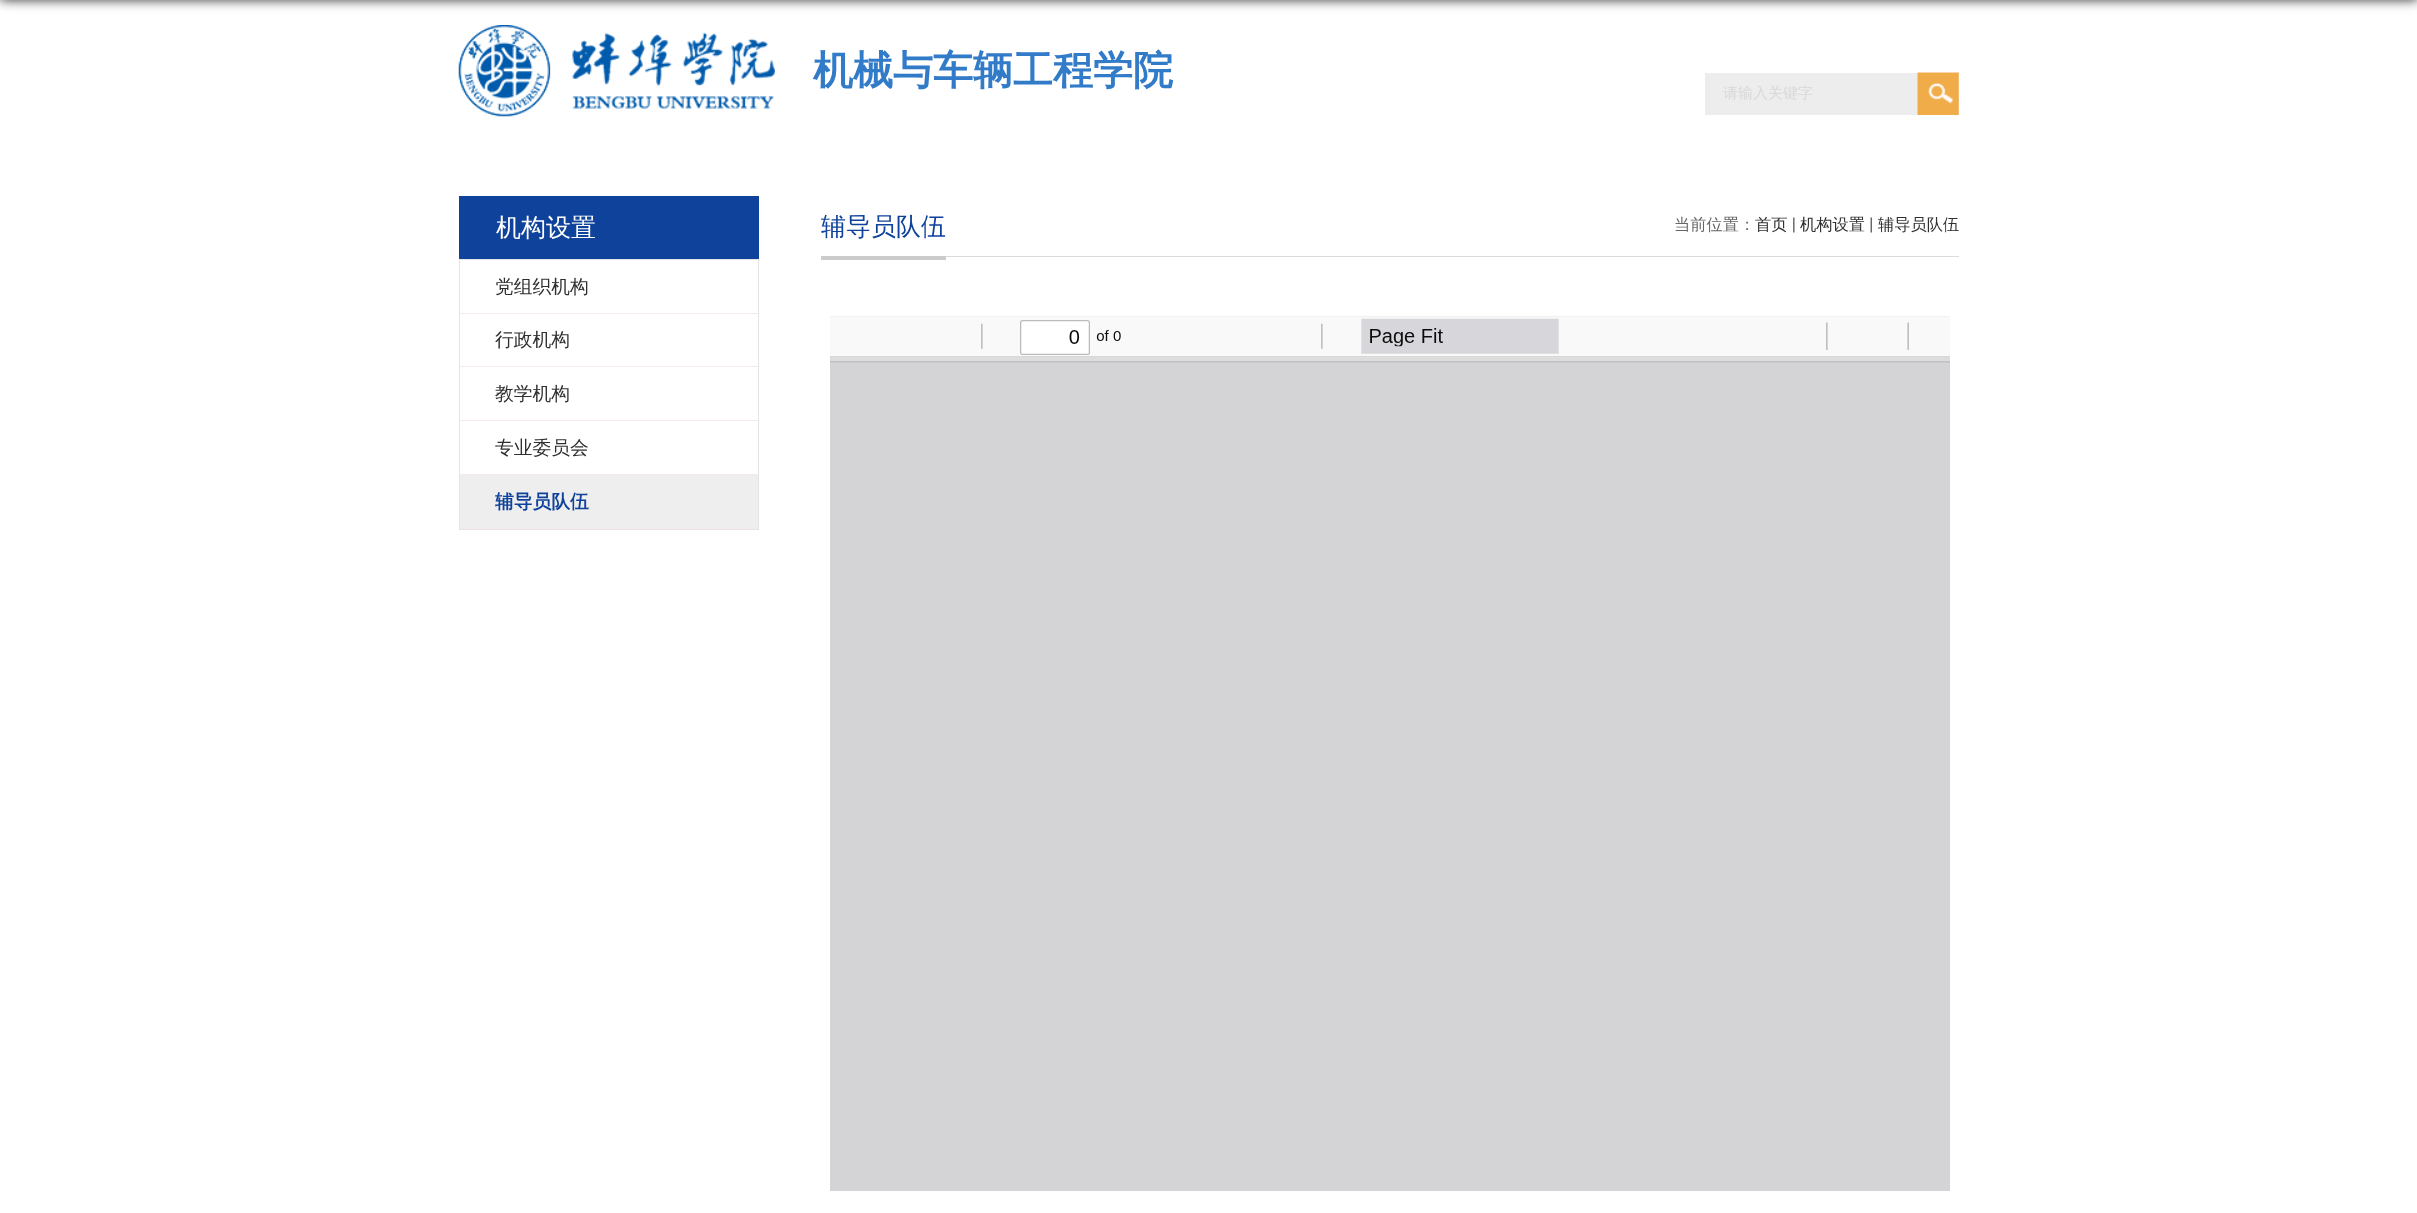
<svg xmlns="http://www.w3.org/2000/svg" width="2417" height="1213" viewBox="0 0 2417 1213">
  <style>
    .t1 { font: bold 40px WenQuanYi Zen Hei; fill: #317bc8; }
    .t2 { font: 500 15px WenQuanYi Zen Hei; fill: #dad7d7; }
    .t3 { font: 500 25px WenQuanYi Zen Hei; fill: #fff; }
    .t4 { font: 500 18.75px WenQuanYi Zen Hei; fill: #2f2f2f; }
    .t5 { font: bold 18.75px WenQuanYi Zen Hei; fill: #0f429b; }
    .t6 { font: 500 25px WenQuanYi Zen Hei; fill: #0f429b; }
    .t7 { font: 500 16.25px WenQuanYi Zen Hei; fill: #666; }
    .t8 { font: 500 16.25px WenQuanYi Zen Hei; fill: #2f2f2f; }
  </style>
  <rect width="100%" height="100%" fill="#fff"/>
  <rect x="0" y="-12" width="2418" height="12" fill="#000000cc" filter="blur(6px)"/>
  <image x="458" y="25" width="317" height="92" href="images/1.png"/>
  <text x="813" y="84" class="t1">机械与车辆工程学院</text>
  <rect x="1705" y="73" width="254" height="42" fill="#ededed"/>
  <text x="1723" y="98" class="t2">请输入关键字</text>
  <image x="1917" y="72" width="42" height="43" href="images/2.png"/>
  <rect x="459" y="196" width="300" height="63" fill="#0f429b"/>
  <text x="496" y="236" class="t3">机构设置</text>
  <rect x="459.5" y="259.5" width="299" height="270" fill="none" stroke="#e4e4e4"/>
  <rect x="460" y="313" width="298" height="1" fill="#f6eaea"/>
  <text x="495" y="293" class="t4">党组织机构</text>
  <rect x="460" y="366" width="298" height="1" fill="#f6eaea"/>
  <text x="495" y="346" class="t4">行政机构</text>
  <rect x="460" y="420" width="298" height="1" fill="#f6eaea"/>
  <text x="495" y="400" class="t4">教学机构</text>
  <rect x="460" y="474" width="298" height="1" fill="#f6eaea"/>
  <text x="495" y="454" class="t4">专业委员会</text>
  <rect x="460" y="475" width="298" height="53" fill="#eee"/>
  <rect x="460" y="528" width="298" height="1" fill="#f6eaea"/>
  <text x="495" y="508" class="t5">辅导员队伍</text>
  <rect x="946" y="256" width="1013" height="1" fill="#dbdbdb"/>
  <rect x="821" y="256" width="125" height="4" fill="#cbcbcb"/>
  <text x="821" y="235" class="t6">辅导员队伍</text>
  <text x="1674" y="230" class="t7">当前位置：</text>
  <text x="1755" y="230" class="t8">首页</text>
  <image x="1793" y="217" width="2" height="16" href="images/3.png"/>
  <text x="1800" y="230" class="t8">机构设置</text>
  <image x="1870" y="217" width="2" height="16" href="images/4.png"/>
  <text x="1878" y="230" class="t8">辅导员队伍</text>
  <image x="830" y="316" width="1120" height="875" href="images/5.png"/>
</svg>
